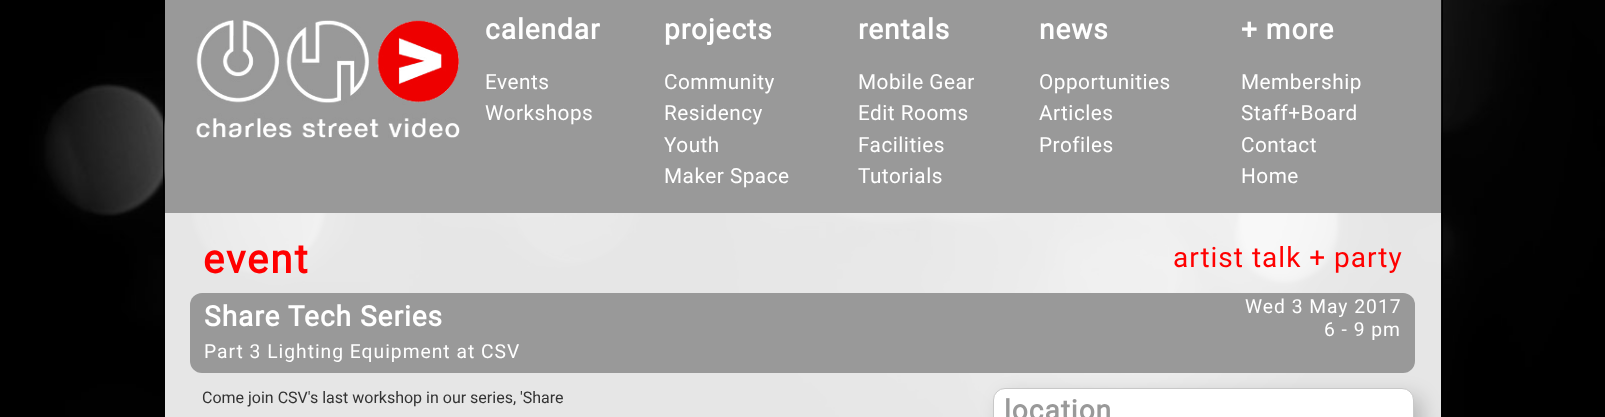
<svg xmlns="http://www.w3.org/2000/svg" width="1605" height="417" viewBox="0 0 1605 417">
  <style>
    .t1 { font: bold 28px Roboto; letter-spacing: 1px; fill: #fff; }
    .t2 { font: 20.75px Roboto; letter-spacing: 0.5px; fill: #fff; }
    .t3 { font: bold 40px Roboto; letter-spacing: 2px; fill: #f00; }
    .t4 { font: 28px Roboto; letter-spacing: 1px; fill: #f00; }
    .t5 { font: 19.25px Roboto; letter-spacing: 1px; fill: #fff; }
    .t6 { font: 16px Roboto; fill: #333; }
    .t7 { font: bold 28px Roboto; letter-spacing: 1px; fill: #999; }
  </style>
  <rect width="100%" height="100%" fill="#fff"/>
  <image x="0" y="0" width="1605" height="417" href="images/1.png"/>
  <rect x="163.5" y="-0.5" width="1279" height="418" fill="none" stroke="#000"/>
  <rect x="165" y="0" width="1276" height="213" fill="#999"/>
  <image x="196" y="20" width="264" height="118" href="images/2.png"/>
  <text x="485" y="39" class="t1">calendar</text>
  <text x="485" y="89" class="t2">Events</text>
  <text x="485" y="120" class="t2">Workshops</text>
  <text x="664" y="39" class="t1">projects</text>
  <text x="664" y="89" class="t2">Community</text>
  <text x="664" y="120" class="t2">Residency</text>
  <text x="664" y="152" class="t2">Youth</text>
  <text x="664" y="183" class="t2">Maker Space</text>
  <text x="858" y="39" class="t1">rentals</text>
  <text x="858" y="89" class="t2">Mobile Gear</text>
  <text x="858" y="120" class="t2">Edit Rooms</text>
  <text x="858" y="152" class="t2">Facilities</text>
  <text x="858" y="183" class="t2">Tutorials</text>
  <text x="1039" y="39" class="t1">news</text>
  <text x="1039" y="89" class="t2">Opportunities</text>
  <text x="1039" y="120" class="t2">Articles</text>
  <text x="1039" y="152" class="t2">Profiles</text>
  <text x="1241" y="39" class="t1">+ more</text>
  <text x="1241" y="89" class="t2">Membership</text>
  <text x="1241" y="120" class="t2">Staff+Board</text>
  <text x="1241" y="152" class="t2">Contact</text>
  <text x="1241" y="183" class="t2">Home</text>
  <rect x="165" y="213" width="1276" height="204" fill="#ffffffe6"/>
  <text x="203" y="273" class="t3">event</text>
  <text x="1173" y="267" class="t4">artist talk + party</text>
  <rect x="190" y="293" width="1225" height="80" rx="12" fill="#999"/>
  <text x="204" y="326" class="t1">Share Tech Series</text>
  <text x="204" y="358" class="t5">Part 3 Lighting Equipment at CSV</text>
  <text x="1245" y="313" class="t5">Wed 3 May 2017</text>
  <text x="1324" y="336" class="t5">6 - 9 pm</text>
  <text x="202" y="403" class="t6">Come join CSV's last workshop in our series, 'Share</text>
  <rect x="1001" y="396" width="421" height="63" rx="12" fill="#00000033" filter="blur(10px)"/>
  <rect x="993.5" y="388.5" width="420" height="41" rx="11.5" fill="#fff" stroke="#c8c8c8"/>
  <text x="1004" y="420" class="t7">location</text>
</svg>
